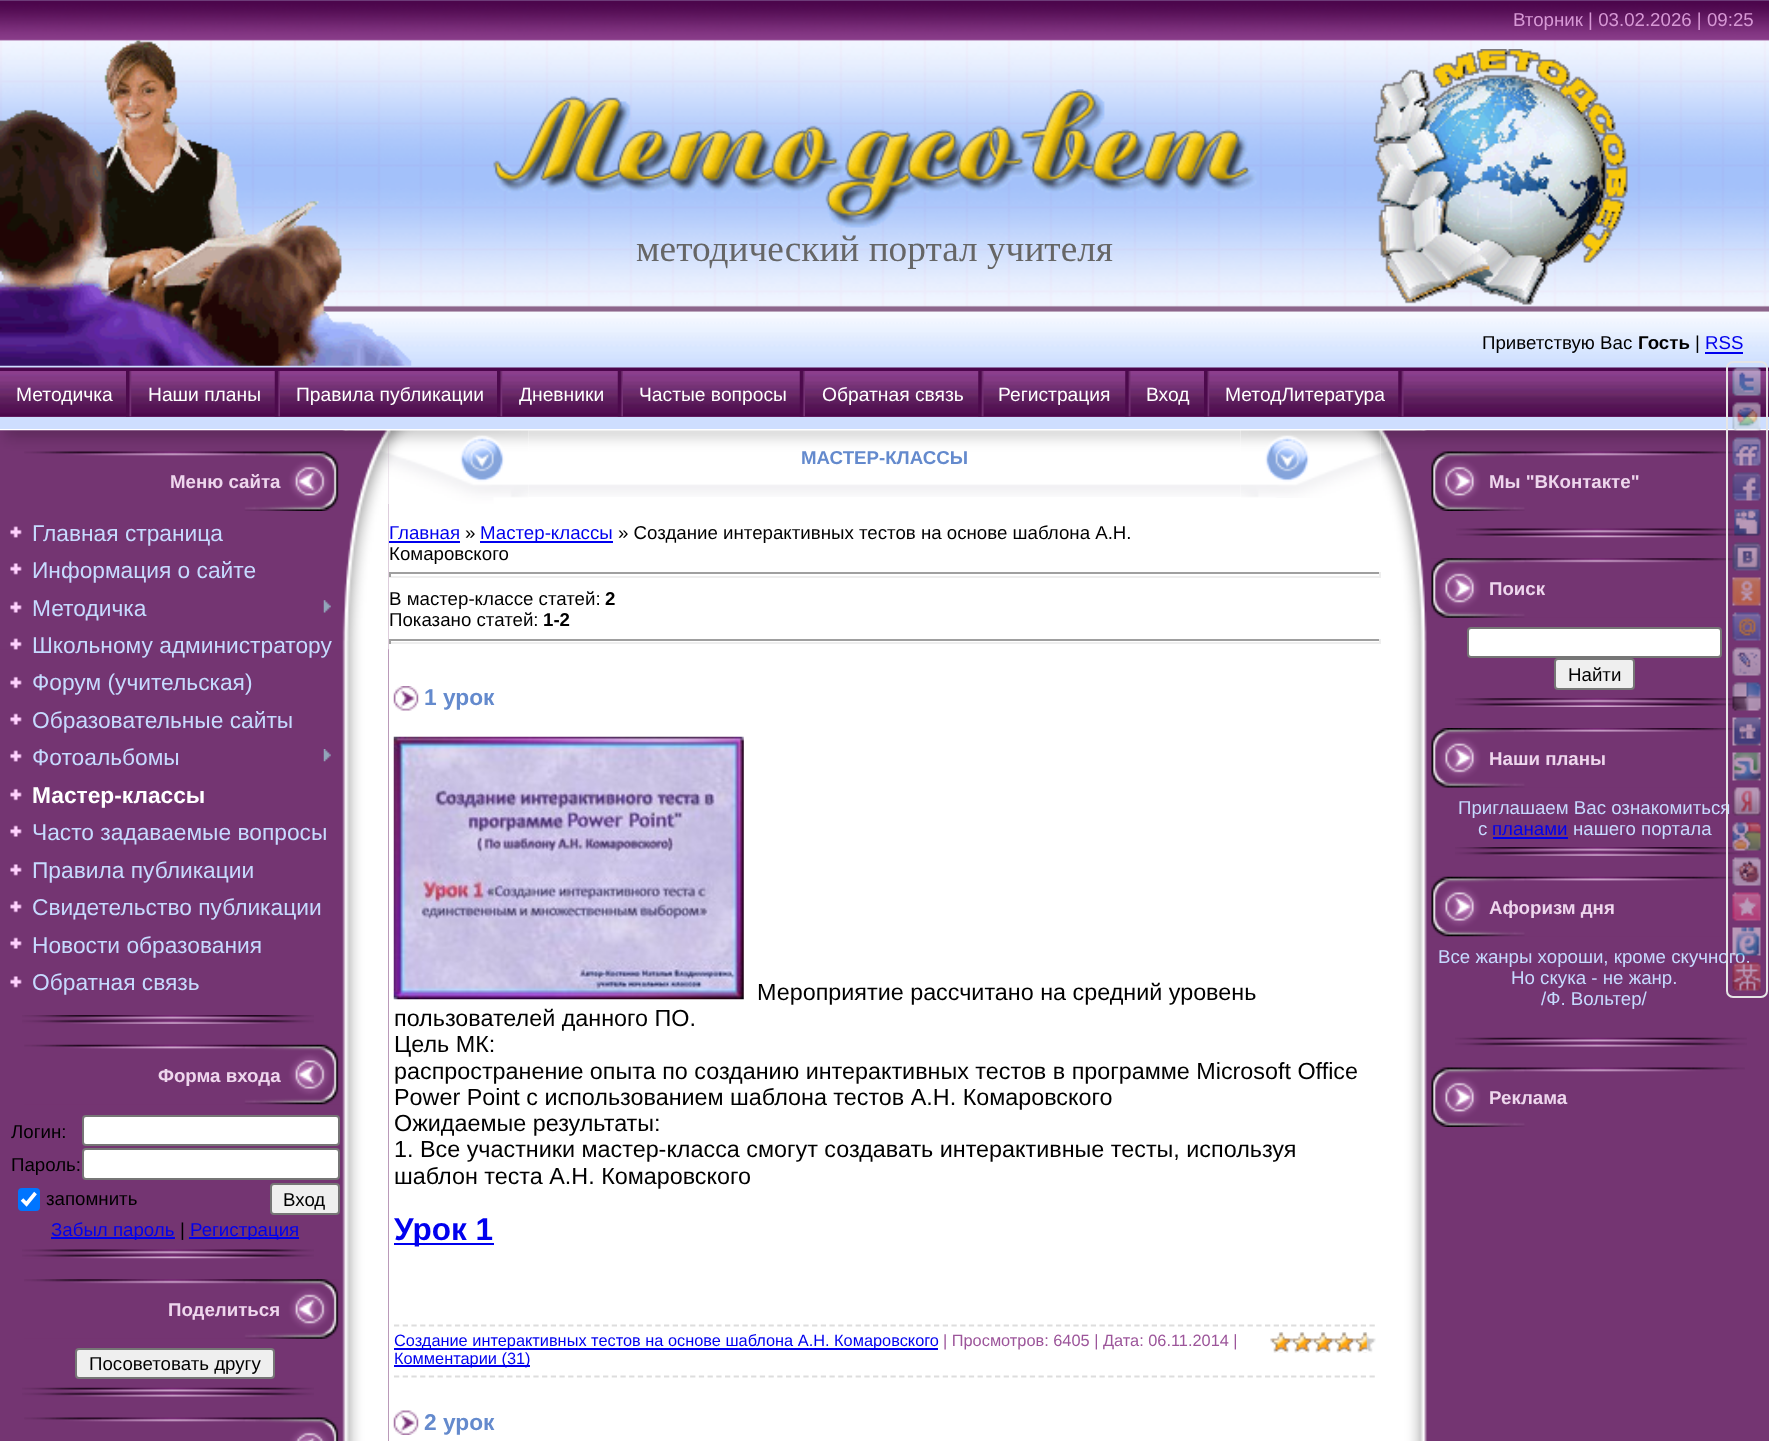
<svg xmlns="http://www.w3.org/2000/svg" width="1769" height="1441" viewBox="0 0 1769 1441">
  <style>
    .t1 { font: 18.7px Liberation Sans; fill: #d798d5; }
    .t2 { font: 37.3px Liberation Serif; fill: #666; }
    .t3 { font: 18.7px Liberation Sans; fill: #000; }
    .t4 { font: bold 18.7px Liberation Sans; fill: #000; }
    .t5 { font: 18.7px Liberation Sans; fill: #00e; }
    .t6 { font: 19.25px Liberation Sans; fill: #fff; }
    .t7 { font: 18.7px Liberation Sans; fill: #c6daff; }
    .t8 { font: bold 18.7px Liberation Sans; fill: #eed6ed; }
    .t9 { font: 22.75px Liberation Sans; fill: #c6daff; }
    .t10 { font: bold 22.75px Liberation Sans; fill: #fff; }
    .t11 { font: bold 18.7px Liberation Sans; fill: #648acd; }
    .t12 { font: bold 22.75px Liberation Sans; fill: #648acd; }
    .t13 { font: 23.35px Liberation Sans; fill: #000; }
    .t14 { font: bold 31.5px Liberation Sans; fill: #00e; }
    .t15 { font: 16.35px Liberation Sans; fill: #00e; }
    .t16 { font: 16.35px Liberation Sans; fill: #9c559a; }
  </style>
  <rect width="100%" height="100%" fill="#fff"/>
  <image x="0" y="0" width="1769" height="371" href="images/1.png"/>
  <image x="0" y="40" width="412" height="326" href="images/2.png"/>
  <text x="1513" y="26" class="t1">Вторник | 03.02.2026 | 09:25</text>
  <image x="493" y="89" width="764" height="139" href="images/3.png"/>
  <text x="636" y="261" class="t2">методический портал учителя</text>
  <image x="1373" y="49" width="255" height="256" href="images/4.png"/>
  <text x="1482" y="349" class="t3">Приветствую Вас</text>
  <text x="1638" y="349" class="t4">Гость</text>
  <text x="1695" y="349" class="t3">|</text>
  <text x="1705" y="349" class="t5">RSS</text>
  <rect x="1705" y="352" width="38" height="2" fill="#00e"/>
  <rect x="0" y="416" width="1769" height="1" fill="#743572"/>
  <image x="0" y="371" width="1769" height="46" href="images/5.png"/>
  <rect x="0" y="417" width="1769" height="12" fill="#cedeff"/>
  <image x="126" y="371" width="6" height="46" href="images/6.png"/>
  <text x="16" y="401" class="t6">Методичка</text>
  <image x="274" y="371" width="6" height="46" href="images/7.png"/>
  <text x="148" y="401" class="t6">Наши планы</text>
  <image x="497" y="371" width="6" height="46" href="images/6.png"/>
  <text x="296" y="401" class="t6">Правила публикации</text>
  <image x="617" y="371" width="6" height="46" href="images/7.png"/>
  <text x="519" y="401" class="t6">Дневники</text>
  <image x="799" y="371" width="6" height="46" href="images/7.png"/>
  <text x="639" y="401" class="t6">Частые вопросы</text>
  <image x="978" y="371" width="6" height="46" href="images/8.png"/>
  <text x="822" y="401" class="t6">Обратная связь</text>
  <image x="1125" y="371" width="6" height="46" href="images/8.png"/>
  <text x="998" y="401" class="t6">Регистрация</text>
  <image x="1204" y="371" width="6" height="46" href="images/9.png"/>
  <text x="1146" y="401" class="t6">Вход</text>
  <image x="1398" y="371" width="6" height="46" href="images/8.png"/>
  <text x="1225" y="401" class="t6">МетодЛитература</text>
  <image x="1381" y="430" width="388" height="1011" href="images/52.png"/>
  <image x="1380" y="430" width="389" height="211" href="images/53.png"/>
  <image x="1431" y="451" width="314" height="60" href="images/54.png"/>
  <image x="1456" y="528" width="291" height="10" href="images/55.png"/>
  <image x="1431" y="558" width="315" height="60" href="images/56.png"/>
  <image x="1455" y="698" width="292" height="9" href="images/57.png"/>
  <image x="1431" y="728" width="315" height="60" href="images/58.png"/>
  <text x="1458" y="814" class="t7">Приглашаем Вас ознакомиться</text>
  <image x="1455" y="847" width="292" height="9" href="images/59.png"/>
  <image x="1431" y="876" width="315" height="61" href="images/60.png"/>
  <text x="1438" y="963" class="t7">Все жанры хороши, кроме скучного.</text>
  <rect x="1727" y="362" width="40" height="635" rx="6" fill="none" stroke="#e5e5e5" stroke-width="2"/>
  <image x="1732" y="367" width="29" height="29" href="images/10.png"/>
  <image x="1732" y="402" width="29" height="29" href="images/11.png"/>
  <image x="1732" y="437" width="29" height="29" href="images/12.png"/>
  <image x="1732" y="472" width="29" height="29" href="images/13.png"/>
  <image x="1734" y="509" width="27" height="27" href="images/14.png"/>
  <image x="1732" y="542" width="29" height="29" href="images/15.png"/>
  <image x="1732" y="577" width="29" height="29" href="images/16.png"/>
  <image x="1732" y="612" width="29" height="29" href="images/17.png"/>
  <image x="1732" y="647" width="29" height="29" href="images/18.png"/>
  <image x="1732" y="682" width="29" height="29" href="images/19.png"/>
  <image x="1732" y="717" width="29" height="29" href="images/20.png"/>
  <image x="1732" y="752" width="29" height="29" href="images/21.png"/>
  <image x="1732" y="787" width="29" height="29" href="images/22.png"/>
  <image x="1732" y="822" width="29" height="29" href="images/23.png"/>
  <image x="1732" y="857" width="29" height="29" href="images/24.png"/>
  <image x="1732" y="892" width="29" height="29" href="images/25.png"/>
  <image x="1732" y="927" width="29" height="29" href="images/26.png"/>
  <image x="1732" y="962" width="29" height="29" href="images/27.png"/>
  <rect x="388" y="431" width="1" height="1010" fill="#743572"/>
  <image x="0" y="430" width="389" height="1011" href="images/28.png"/>
  <image x="0" y="430" width="389" height="220" href="images/29.png"/>
  <image x="24" y="451" width="315" height="60" href="images/30.png"/>
  <text x="170" y="488" class="t8">Меню сайта</text>
  <image x="10" y="526" width="12" height="12" href="images/31.png"/>
  <text x="32" y="541" class="t9">Главная страница</text>
  <image x="10" y="563" width="12" height="12" href="images/32.png"/>
  <text x="32" y="578" class="t9">Информация о сайте</text>
  <image x="10" y="601" width="12" height="12" href="images/33.png"/>
  <text x="32" y="616" class="t9">Методичка</text>
  <image x="323" y="600" width="8" height="13" href="images/34.png"/>
  <image x="10" y="638" width="12" height="12" href="images/35.png"/>
  <text x="32" y="653" class="t9">Школьному администратору</text>
  <image x="10" y="676" width="12" height="13" href="images/36.png"/>
  <text x="32" y="690" class="t9">Форум (учительская)</text>
  <image x="10" y="713" width="12" height="12" href="images/33.png"/>
  <text x="32" y="728" class="t9">Образовательные сайты</text>
  <image x="10" y="750" width="12" height="12" href="images/31.png"/>
  <text x="32" y="765" class="t9">Фотоальбомы</text>
  <image x="323" y="749" width="8" height="13" href="images/37.png"/>
  <image x="10" y="788" width="12" height="13" href="images/36.png"/>
  <text x="32" y="803" class="t10">Мастер-классы</text>
  <image x="10" y="825" width="12" height="12" href="images/33.png"/>
  <text x="32" y="840" class="t9">Часто задаваемые вопросы</text>
  <image x="10" y="864" width="12" height="12" href="images/32.png"/>
  <text x="32" y="878" class="t9">Правила публикации</text>
  <image x="10" y="900" width="12" height="13" href="images/36.png"/>
  <text x="32" y="915" class="t9">Свидетельство публикации</text>
  <image x="10" y="937" width="12" height="12" href="images/33.png"/>
  <text x="32" y="953" class="t9">Новости образования</text>
  <image x="10" y="976" width="12" height="12" href="images/32.png"/>
  <text x="32" y="990" class="t9">Обратная связь</text>
  <image x="22" y="1015" width="292" height="9" href="images/38.png"/>
  <image x="24" y="1044" width="315" height="61" href="images/39.png"/>
  <text x="158" y="1082" class="t8">Форма входа</text>
  <text x="11" y="1138" class="t3">Логин:</text>
  <rect x="83" y="1116" width="256" height="29" rx="3" fill="#fff" stroke="#767676" stroke-width="2"/>
  <text x="11" y="1171" class="t3">Пароль:</text>
  <rect x="83" y="1149" width="256" height="30" rx="3" fill="#fff" stroke="#767676" stroke-width="2"/>
  <rect x="18" y="1188" width="22" height="23" rx="4" fill="#0075ff"/>
  <path d="M22 1199.5L26.5 1204L35.5 1193" fill="none" stroke="#fff" stroke-width="3.6"/>
  <text x="46" y="1205" class="t3">запомнить</text>
  <rect x="271" y="1184" width="68" height="30" rx="3" fill="#efefef" stroke="#767676" stroke-width="2"/>
  <text x="283" y="1206" class="t3">Вход</text>
  <rect x="51" y="1237" width="124" height="2" fill="#00e"/>
  <text x="51" y="1236" class="t5">Забыл пароль</text>
  <text x="180" y="1236" class="t3">|</text>
  <rect x="189" y="1237" width="110" height="2" fill="#00e"/>
  <text x="190" y="1236" class="t5">Регистрация</text>
  <image x="22" y="1249" width="292" height="10" href="images/40.png"/>
  <image x="24" y="1279" width="315" height="60" href="images/41.png"/>
  <text x="168" y="1316" class="t8">Поделиться</text>
  <rect x="76" y="1349" width="198" height="29" rx="3" fill="#efefef" stroke="#767676" stroke-width="2"/>
  <text x="89" y="1370" class="t3">Посоветовать другу</text>
  <image x="22" y="1387" width="292" height="10" href="images/42.png"/>
  <image x="24" y="1417" width="315" height="24" href="images/43.png"/>
  <image x="528" y="430" width="713" height="67" href="images/45.png"/>
  <image x="388" y="430" width="141" height="74" href="images/44.png"/>
  <text x="801" y="464" class="t11">МАСТЕР-КЛАССЫ</text>
  <image x="1241" y="430" width="140" height="68" href="images/46.png"/>
  <text x="389" y="539" class="t5">Главная</text>
  <rect x="389" y="541" width="71" height="2" fill="#00e"/>
  <text x="465" y="539" class="t3">»</text>
  <rect x="480" y="541" width="133" height="2" fill="#00e"/>
  <text x="480" y="539" class="t5">Мастер-классы</text>
  <text x="618" y="539" class="t3">» Cозданиe интерактивных тестов на основе шаблона А.Н.</text>
  <text x="389" y="560" class="t3">Комаровского</text>
  <rect x="389" y="572" width="992" height="2" fill="#9f9f9f"/>
  <rect x="1379" y="572" width="2" height="5" fill="#eee"/>
  <rect x="389" y="576" width="992" height="2" fill="#eee"/>
  <rect x="389" y="572" width="2" height="5" fill="#9f9f9f"/>
  <text x="389" y="605" class="t3">В мастер-классе статей:</text>
  <text x="605" y="605" class="t4">2</text>
  <text x="389" y="626" class="t3">Показано статей:</text>
  <text x="543" y="626" class="t4">1-2</text>
  <rect x="389" y="639" width="992" height="2" fill="#9f9f9f"/>
  <rect x="1379" y="639" width="2" height="5" fill="#eee"/>
  <rect x="389" y="642" width="992" height="2" fill="#eee"/>
  <rect x="389" y="639" width="2" height="5" fill="#9f9f9f"/>
  <image x="393" y="686" width="26" height="25" href="images/47.png"/>
  <text x="424" y="705" class="t12">1 урок</text>
  <image x="393" y="736" width="351" height="264" href="images/48.png"/>
  <text x="757" y="1000" class="t13">Мероприятие рассчитано на средний уровень</text>
  <text x="394" y="1026" class="t13">пользователей данного ПО.</text>
  <text x="394" y="1052" class="t13">Цель МК:</text>
  <text x="394" y="1079" class="t13">распространение опыта по созданию интерактивных тестов в программе Microsoft Office</text>
  <text x="394" y="1105" class="t13">Power Point с использованием шаблона тестов А.Н. Комаровского</text>
  <text x="394" y="1131" class="t13">Ожидаемые результаты:</text>
  <text x="394" y="1157" class="t13">1. Все участники мастер-класса смогут создавать интерактивные тесты, используя</text>
  <text x="394" y="1184" class="t13">шаблон теста А.Н. Комаровского</text>
  <rect x="394" y="1243" width="100" height="2" fill="#00e"/>
  <text x="394" y="1240" class="t14">Урок 1</text>
  <path d="M394 1325.5H1375.5" fill="none" stroke="#ddd" stroke-width="1.8" stroke-dasharray="5.25 3.46"/>
  <path d="M394 1376.5H1375.5" fill="none" stroke="#ddd" stroke-width="1.8" stroke-dasharray="5.25 3.46"/>
  <rect x="394" y="1348" width="544" height="2" fill="#00e"/>
  <text x="394" y="1346" class="t15">Cозданиe интерактивных тестов на основе шаблона А.Н. Комаровского</text>
  <text x="943" y="1346" class="t16">| Просмотров: 6405 | Дата: 06.11.2014 |</text>
  <image x="1270" y="1332" width="106" height="21" href="images/49.png"/>
  <image x="1270" y="1332" width="97" height="21" href="images/50.png"/>
  <rect x="394" y="1365" width="136" height="2" fill="#00e"/>
  <text x="394" y="1364" class="t15">Комментарии (31)</text>
  <image x="393" y="1410" width="26" height="25" href="images/51.png"/>
  <text x="424" y="1430" class="t12">2 урок</text>
  <text x="1489" y="488" class="t8">Мы "ВКонтакте"</text>
  <text x="1489" y="595" class="t8">Поиск</text>
  <rect x="1468" y="628" width="253" height="29" rx="3" fill="#fff" stroke="#767676" stroke-width="2"/>
  <rect x="1555" y="659" width="79" height="30" rx="3" fill="#efefef" stroke="#767676" stroke-width="2"/>
  <text x="1568" y="681" class="t3">Найти</text>
  <text x="1489" y="765" class="t8">Наши планы</text>
  <text x="1478" y="835" class="t7">с</text>
  <text x="1492" y="835" class="t5">планами</text>
  <rect x="1493" y="837" width="75" height="2" fill="#00e"/>
  <text x="1573" y="835" class="t7">нашего портала</text>
  <text x="1489" y="914" class="t8">Афоризм дня</text>
  <text x="1511" y="984" class="t7">Но скука - не жанр.</text>
  <text x="1541" y="1005" class="t7">/Ф. Вольтер/</text>
  <image x="1455" y="1037" width="292" height="10" href="images/61.png"/>
  <image x="1431" y="1067" width="314" height="60" href="images/54.png"/>
  <text x="1489" y="1104" class="t8">Реклама</text>
</svg>
